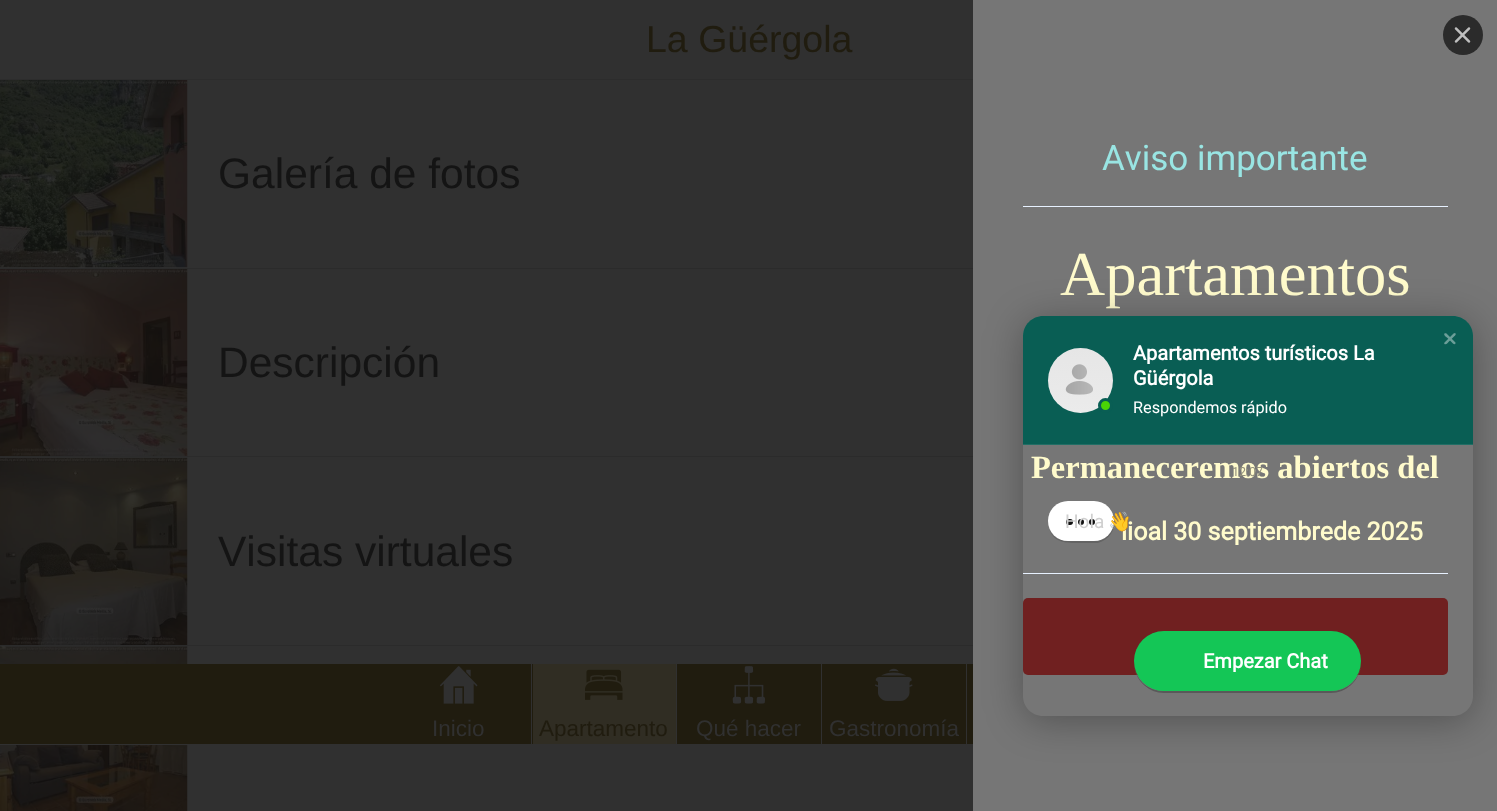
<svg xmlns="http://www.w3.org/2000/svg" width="1497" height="811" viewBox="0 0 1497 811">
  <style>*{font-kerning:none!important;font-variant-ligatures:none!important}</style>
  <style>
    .t1 { font: 42.5px Liberation Sans; fill: #141414; }
    .t2 { font: 37.5px Liberation Sans; fill: #201c0f; }
    .t3 { font: 22.5px Liberation Sans; fill: #303030; }
    .t4 { font: 22.5px Liberation Sans; fill: #201c0f; }
    .t5 { font: 35px Roboto; fill: #99e5e3; }
    .t6 { font: 62.5px Liberation Serif; fill: #fffbcc; }
    .t7 { font: bold 32.5px Liberation Serif; fill: #fffbcc; }
    .t8 { font: bold 25px Roboto; fill: #fffbcc; }
    .t9 { font: bold 20px Roboto; fill: #fff; }
    .t10 { font: 16.25px Roboto; fill: #fff; }
    .t11 { font: 12.5px Roboto; fill: #92907c; }
    .t12 { font: 19px Roboto; fill: #cfcfcf; }
    .t13 { font: 19px Noto Color Emoji; fill: #a2a29d; }
  </style>
  <defs>
    <clipPath id="clip1"><path d="M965 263H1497V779H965ZM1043 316H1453C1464 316 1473 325 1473 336V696C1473 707 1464 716 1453 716H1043C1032 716 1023 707 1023 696V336C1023 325 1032 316 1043 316Z" clip-rule="evenodd"/></clipPath>
    <linearGradient id="g1" gradientUnits="userSpaceOnUse" x1="1080" y1="348" x2="1080" y2="413"><stop offset="0" stop-color="#f2f2f2"/><stop offset="1" stop-color="#f7f7f7"/></linearGradient>
  </defs>
  <rect width="100%" height="100%" fill="#303030"/>
  <rect x="0" y="268" width="973" height="1" fill="#2b2b2b"/>
  <image x="0" y="80" width="188" height="188" href="images/1.png"/>
  <text x="218" y="188" class="t1">Galería de fotos</text>
  <rect x="0" y="456" width="973" height="1" fill="#2b2b2b"/>
  <image x="0" y="268" width="188" height="189" href="images/2.png"/>
  <text x="218" y="377" class="t1">Descripción</text>
  <rect x="0" y="645" width="973" height="1" fill="#2b2b2b"/>
  <image x="0" y="457" width="188" height="188" href="images/3.png"/>
  <text x="218" y="566" class="t1">Visitas virtuales</text>
  <image x="0" y="646" width="188" height="165" href="images/4.png"/>
  <rect x="0" y="79" width="973" height="1" fill="#2c2c2c"/>
  <text x="646" y="52" class="t2">La Güérgola</text>
  <rect x="0" y="664" width="973" height="80" fill="#201c0f"/>
  <rect x="0" y="744" width="188" height="1" fill="#303030"/>
  <rect x="531" y="664" width="1" height="80" fill="#303030"/>
  <image x="440" y="666" width="38" height="38" href="images/5.png"/>
  <text x="432" y="736" class="t3">Inicio</text>
  <rect x="676" y="664" width="1" height="80" fill="#303030"/>
  <rect x="533" y="664" width="143" height="80" fill="#302d23"/>
  <image x="585" y="669" width="38" height="31" href="images/6.png"/>
  <text x="539" y="736" class="t4">Apartamento</text>
  <rect x="821" y="664" width="1" height="80" fill="#303030"/>
  <image x="732" y="666" width="33" height="38" href="images/7.png"/>
  <text x="696" y="736" class="t3">Qué hacer</text>
  <rect x="966" y="664" width="1" height="80" fill="#303030"/>
  <image x="875" y="668" width="38" height="33" href="images/8.png"/>
  <text x="829" y="736" class="t3">Gastronomía</text>
  <rect x="973" y="0" width="524" height="811" fill="#767676"/>
  <circle cx="1463" cy="35" r="20" fill="#2b2b2b"/>
  <image x="1454" y="27" width="17" height="16" href="images/9.png"/>
  <text x="1102" y="170" class="t5">Aviso importante</text>
  <rect x="1023" y="206" width="425" height="1" fill="#e7f1ff"/>
  <text x="1060" y="295" class="t6">Apartamentos</text>
  <text x="1031" y="478" class="t7">Permaneceremos abiertos del</text>
  <text x="1121" y="540" class="t8">lioal 30 septiembrede 2025</text>
  <rect x="1023" y="573" width="425" height="1" fill="#e7f1ff"/>
  <rect x="1023" y="598" width="425" height="77" rx="5" fill="#702020"/>
  <g clip-path="url(#clip1)">
    <rect x="1023" y="321" width="450" height="400" rx="20" fill="#0000004d" filter="blur(19px)"/>
  </g>
  <path d="M1043 316H1453C1464 316 1473 325 1473 336V445H1023V336C1023 325 1032 316 1043 316Z" fill="#095e54"/>
  <path d="M1446.5 333.5L1455.5 342.5V343.5C1454.5 345.5 1452.5 343 1452 342.5L1447.5 338C1447 337.5 1443 335 1444.5 333.5C1445 333 1446 333 1446.5 333.5Z" fill="#6b9e98"/>
  <path d="M1444.5 342.5L1453.5 333.5L1455 333C1457 334 1454.5 336 1454 336.5L1449.5 341C1448.5 342 1446 345.5 1444.5 344C1444 343.5 1444 343 1444.5 342.5Z" fill="#6b9e98"/>
  <rect x="1023" y="444" width="450" height="1" fill="#226e65"/>
  <circle cx="1080.5" cy="380.5" r="32.5" fill="url(#g1)"/>
  <image x="1065" y="364" width="28" height="31" href="images/10.png"/>
  <path d="M1080 348C1098 348 1113 363 1113 380C1113 398 1098 413 1080 413C1063 413 1048 398 1048 380C1048 363 1063 348 1080 348Z" fill="#1111110d"/>
  <circle cx="1105.5" cy="405.5" r="6" fill="#4ad504" stroke="#095e54" stroke-width="3"/>
  <text x="1133" y="360" class="t9">Apartamentos turísticos La</text>
  <text x="1133" y="385" class="t9">Güérgola</text>
  <text x="1133" y="413" class="t10">Respondemos rápido</text>
  <text x="1232" y="476" class="t11">12:07</text>
  <path d="M1049 528C1053 544 1068 543 1081 543H1098C1109 540 1116 530 1114 519C1115 529 1108 539 1098 541H1081C1068 541 1054 543 1049 528Z" fill="#00000026"/>
  <rect x="1048" y="501" width="66" height="40" rx="20" fill="#fff"/>
  <rect x="1066" y="519" width="7" height="6" rx="3" fill="#111"/>
  <circle cx="1081" cy="522" r="3" fill="#111"/>
  <circle cx="1092" cy="522" r="3" fill="#111"/>
  <text x="1065" y="528" class="t12">Hola</text>
  <text x="1108" y="528" class="t13">👋</text>
  <path d="M1134 666C1136 681 1149 693 1164 693H1331C1346 693 1359 681 1361 666C1358 681 1346 691 1331 691H1164C1149 691 1137 681 1134 666Z" fill="#595959"/>
  <rect x="1134" y="631" width="227" height="60" rx="30" fill="#14c656"/>
  <text x="1203" y="668" class="t9">Empezar Chat</text>
</svg>
